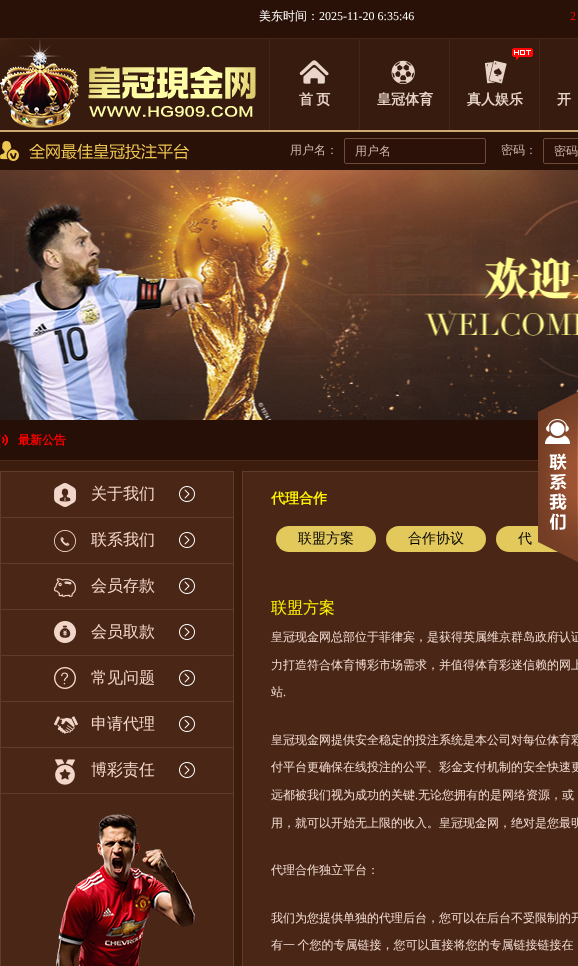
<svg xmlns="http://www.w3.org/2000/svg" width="578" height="966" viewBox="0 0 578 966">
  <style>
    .t1 { font: 500 12px WenQuanYi Zen Hei; fill: #fff; }
    .t2 { font: 12px Liberation Serif; fill: #fff; }
    .t3 { font: 12px Liberation Serif; fill: #f00; }
    .t4 { font: bold 14px WenQuanYi Zen Hei; fill: #e9d4ca; }
    .t5 { font: 500 12px WenQuanYi Zen Hei; fill: #cdb4a8; }
    .t6 { font: bold 12px WenQuanYi Zen Hei; fill: #f00; }
    .t7 { font: 500 16px WenQuanYi Zen Hei; fill: #f2d6ca; }
    .t8 { font: bold 14px WenQuanYi Zen Hei; fill: #fff400; }
    .t9 { font: 500 14px WenQuanYi Zen Hei; fill: #000; }
    .t10 { font: 500 16px WenQuanYi Zen Hei; fill: #fff400; }
    .t11 { font: 500 12px WenQuanYi Zen Hei; fill: #f2dcd2; }
    .t12 { font: 12px Liberation Serif; fill: #f2dcd2; }
  </style>
  <rect width="100%" height="100%" fill="#291107"/>
  <text x="259" y="20" class="t1">美东时间：</text>
  <text x="319" y="20" class="t2">2025-11-20 6:35:46</text>
  <text x="570" y="20" class="t3">2</text>
  <image x="0" y="38" width="578" height="92" href="images/1.png"/>
  <rect x="0" y="130" width="578" height="2" fill="#cfa972"/>
  <image x="0" y="39" width="256" height="89" href="images/2.png"/>
  <rect x="269" y="38" width="1" height="92" fill="#432617"/>
  <image x="299" y="60" width="30" height="24" href="images/3.png"/>
  <text x="299" y="104" word-spacing="-1" class="t4">首 页</text>
  <rect x="359" y="38" width="1" height="92" fill="#432617"/>
  <image x="391" y="60" width="24" height="24" href="images/4.png"/>
  <text x="377" y="104" class="t4">皇冠体育</text>
  <rect x="449" y="38" width="1" height="92" fill="#432617"/>
  <image x="512" y="48" width="21" height="12" href="images/5.png"/>
  <image x="485" y="60" width="22" height="24" href="images/6.png"/>
  <text x="467" y="104" class="t4">真人娱乐</text>
  <rect x="539" y="38" width="1" height="92" fill="#432617"/>
  <text x="557" y="104" class="t4">开</text>
  <image x="0" y="141" width="189" height="20" href="images/7.png"/>
  <text x="290" y="154" class="t5">用户名：</text>
  <rect x="344.5" y="138.5" width="141" height="25" rx="1.5" fill="#2c1108" stroke="#704b39"/>
  <text x="355" y="155" class="t5">用户名</text>
  <text x="501" y="154" class="t5">密码：</text>
  <path d="M545 138H578V164H545C544 164 543 163 543 162V140C543 139 544 138 545 138Z" fill="#2c1108"/>
  <rect x="543.5" y="138.5" width="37" height="25" rx="1.5" fill="none" stroke="#704b39"/>
  <text x="554" y="155" class="t5">密码</text>
  <image x="0" y="170" width="578" height="250" href="images/8.png"/>
  <rect x="0" y="420" width="538" height="40" fill="#260f07"/>
  <rect x="0" y="460" width="538" height="1" fill="#512b17"/>
  <image x="0" y="434" width="8" height="14" href="images/9.png"/>
  <text x="18" y="444" class="t6">最新公告</text>
  <rect x="0" y="461" width="538" height="505" fill="#3b1c0d"/>
  <rect x="242.5" y="471.5" width="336" height="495" fill="#4a2616" stroke="#613c29"/>
  <rect x="496" y="526" width="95" height="26" rx="13" fill="#e3c95b"/>
  <image x="538" y="392" width="40" height="170" href="images/10.png"/>
  <rect x="0.5" y="471.5" width="233" height="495" fill="#4a2616" stroke="#613c29"/>
  <rect x="1" y="517" width="232" height="1" fill="#613c29"/>
  <image x="54" y="483" width="22" height="24" href="images/11.png"/>
  <image x="179" y="486" width="16" height="16" href="images/12.png"/>
  <text x="91" y="499" class="t7">关于我们</text>
  <rect x="1" y="563" width="232" height="1" fill="#613c29"/>
  <image x="54" y="530" width="22" height="22" href="images/13.png"/>
  <image x="179" y="532" width="16" height="16" href="images/12.png"/>
  <text x="91" y="545" class="t7">联系我们</text>
  <rect x="1" y="609" width="232" height="1" fill="#613c29"/>
  <image x="54" y="578" width="22" height="19" href="images/14.png"/>
  <image x="179" y="578" width="16" height="16" href="images/12.png"/>
  <text x="91" y="591" class="t7">会员存款</text>
  <rect x="1" y="655" width="232" height="1" fill="#613c29"/>
  <image x="54" y="621" width="22" height="22" href="images/15.png"/>
  <image x="179" y="624" width="16" height="16" href="images/12.png"/>
  <text x="91" y="637" class="t7">会员取款</text>
  <rect x="1" y="701" width="232" height="1" fill="#613c29"/>
  <image x="54" y="667" width="22" height="22" href="images/16.png"/>
  <image x="179" y="670" width="16" height="16" href="images/12.png"/>
  <text x="91" y="683" class="t7">常见问题</text>
  <rect x="1" y="747" width="232" height="1" fill="#613c29"/>
  <image x="54" y="716" width="24" height="18" href="images/17.png"/>
  <image x="179" y="716" width="16" height="16" href="images/12.png"/>
  <text x="91" y="729" class="t7">申请代理</text>
  <rect x="1" y="793" width="232" height="1" fill="#613c29"/>
  <image x="55" y="759" width="20" height="26" href="images/18.png"/>
  <image x="179" y="762" width="16" height="16" href="images/12.png"/>
  <text x="91" y="775" class="t7">博彩责任</text>
  <image x="56" y="814" width="139" height="152" href="images/19.png"/>
  <text x="271" y="503" class="t8">代理合作</text>
  <rect x="276" y="526" width="100" height="26" rx="13" fill="#e3c95b"/>
  <text x="298" y="543" class="t9">联盟方案</text>
  <rect x="386" y="526" width="100" height="26" rx="13" fill="#e3c95b"/>
  <text x="408" y="543" class="t9">合作协议</text>
  <text x="518" y="543" class="t9">代</text>
  <text x="271" y="613" class="t10">联盟方案</text>
  <text x="271" y="641" class="t11">皇冠现金网总部位于菲律宾，是获得英属维京群岛政府认证</text>
  <text x="271" y="669" class="t11">力打造符合体育博彩市场需求，并值得体育彩迷信赖的网上</text>
  <text x="271" y="696" class="t11">站</text>
  <text x="283" y="696" class="t12">.</text>
  <text x="271" y="744" class="t11">皇冠现金网提供安全稳定的投注系统是本公司对每位体育彩</text>
  <text x="271" y="771" class="t11">付平台更确保在线投注的公平、彩金支付机制的安全快速更</text>
  <text x="271" y="799" class="t11">远都被我们视为成功的关键</text>
  <text x="415" y="799" class="t12">.</text>
  <text x="418" y="799" class="t11">无论您拥有的是网络资源，或</text>
  <text x="271" y="827" class="t11">用，就可以开始无上限的收入。皇冠现金网，绝对是您最明</text>
  <text x="271" y="874" class="t11">代理合作独立平台：</text>
  <text x="271" y="922" class="t11">我们为您提供单独的代理后台，您可以在后台不受限制的开</text>
  <text x="271" y="949" word-spacing="-1" class="t11">有一 个您的专属链接，您可以直接将您的专属链接链接在</text>
</svg>
